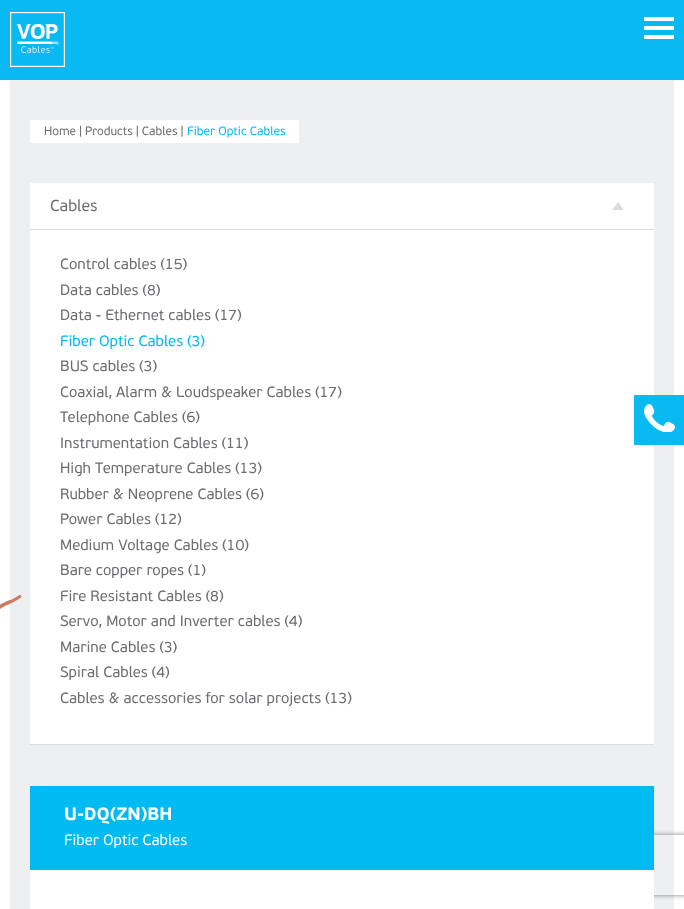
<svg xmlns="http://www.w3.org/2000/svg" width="684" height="909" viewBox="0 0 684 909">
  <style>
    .t1 { font: 12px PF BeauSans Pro; fill: #6d6e71; }
    .t2 { font: 12px PF BeauSans Pro; fill: #00baf2; }
    .t3 { font: 16px PF BeauSans Pro; fill: #6d6e71; }
    .t4 { font: 15px PF BeauSans Pro; fill: #6d6e71; }
    .t5 { font: 15px PF BeauSans Pro; fill: #00baf2; }
    .t6 { font: bold 18px PF BeauSans Pro; fill: #fff; }
    .t7 { font: 15px PF BeauSans Pro; fill: #fff; }
  </style>
  <defs>
    <clipPath id="clip1"><path d="M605 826H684V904H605ZM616 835H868C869 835 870 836 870 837V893C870 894 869 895 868 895H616C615 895 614 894 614 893V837C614 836 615 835 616 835Z" clip-rule="evenodd"/></clipPath>
  </defs>
  <rect width="100%" height="100%" fill="#fff"/>
  <rect x="0" y="0" width="684" height="80" fill="#08baf1"/>
  <image x="10" y="12" width="55" height="55" href="images/1.png"/>
  <rect x="644" y="26" width="30" height="4" fill="#fff"/>
  <rect x="644" y="17" width="30" height="4" fill="#fff"/>
  <rect x="644" y="35" width="30" height="4" fill="#fff"/>
  <rect x="10" y="80" width="664" height="829" fill="#edeff0"/>
  <rect x="30" y="120" width="269" height="23" fill="#fff"/>
  <text x="44" y="135" class="t1">Home | Products | Cables |</text>
  <text x="187" y="135" class="t2">Fiber Optic Cables</text>
  <rect x="30" y="183" width="624" height="561" fill="#fff"/>
  <image x="612" y="202" width="12" height="8" href="images/2.png"/>
  <rect x="30" y="229" width="624" height="1" fill="#d9dcdd"/>
  <text x="50" y="211" class="t3">Cables</text>
  <rect x="30" y="744" width="624" height="1" fill="#d9dcdd"/>
  <text x="60" y="269" class="t4">Control cables (15)</text>
  <text x="60" y="295" class="t4">Data cables (8)</text>
  <text x="60" y="320" class="t4">Data - Ethernet cables (17)</text>
  <text x="60" y="346" class="t5">Fiber Optic Cables (3)</text>
  <text x="60" y="371" class="t4">BUS cables (3)</text>
  <text x="60" y="397" class="t4">Coaxial, Alarm &amp; Loudspeaker Cables (17)</text>
  <text x="60" y="422" class="t4">Telephone Cables (6)</text>
  <text x="60" y="448" class="t4">Instrumentation Cables (11)</text>
  <text x="60" y="473" class="t4">High Temperature Cables (13)</text>
  <text x="60" y="499" class="t4">Rubber &amp; Neoprene Cables (6)</text>
  <text x="60" y="524" class="t4">Power Cables (12)</text>
  <text x="60" y="550" class="t4">Medium Voltage Cables (10)</text>
  <text x="60" y="575" class="t4">Bare copper ropes (1)</text>
  <text x="60" y="601" class="t4">Fire Resistant Cables (8)</text>
  <text x="60" y="626" class="t4">Servo, Motor and Inverter cables (4)</text>
  <text x="60" y="652" class="t4">Marine Cables (3)</text>
  <text x="60" y="677" class="t4">Spiral Cables (4)</text>
  <text x="60" y="703" class="t4">Cables &amp; accessories for solar projects (13)</text>
  <g clip-path="url(#clip1)">
    <rect x="614" y="835" width="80" height="60" rx="2" fill="#808080" filter="blur(2.5px)"/>
  </g>
  <rect x="30" y="786" width="624" height="84" fill="#00baf2"/>
  <text x="64" y="820" class="t6">U-DQ(ZN)BH</text>
  <text x="64" y="845" class="t7">Fiber Optic Cables</text>
  <rect x="30" y="870" width="624" height="39" fill="#fff"/>
  <rect x="634" y="395" width="50" height="50" fill="#08baf1"/>
  <image x="644" y="404" width="31" height="28" href="images/3.png"/>
  <image x="0" y="595" width="22" height="14" href="images/4.png"/>
</svg>
